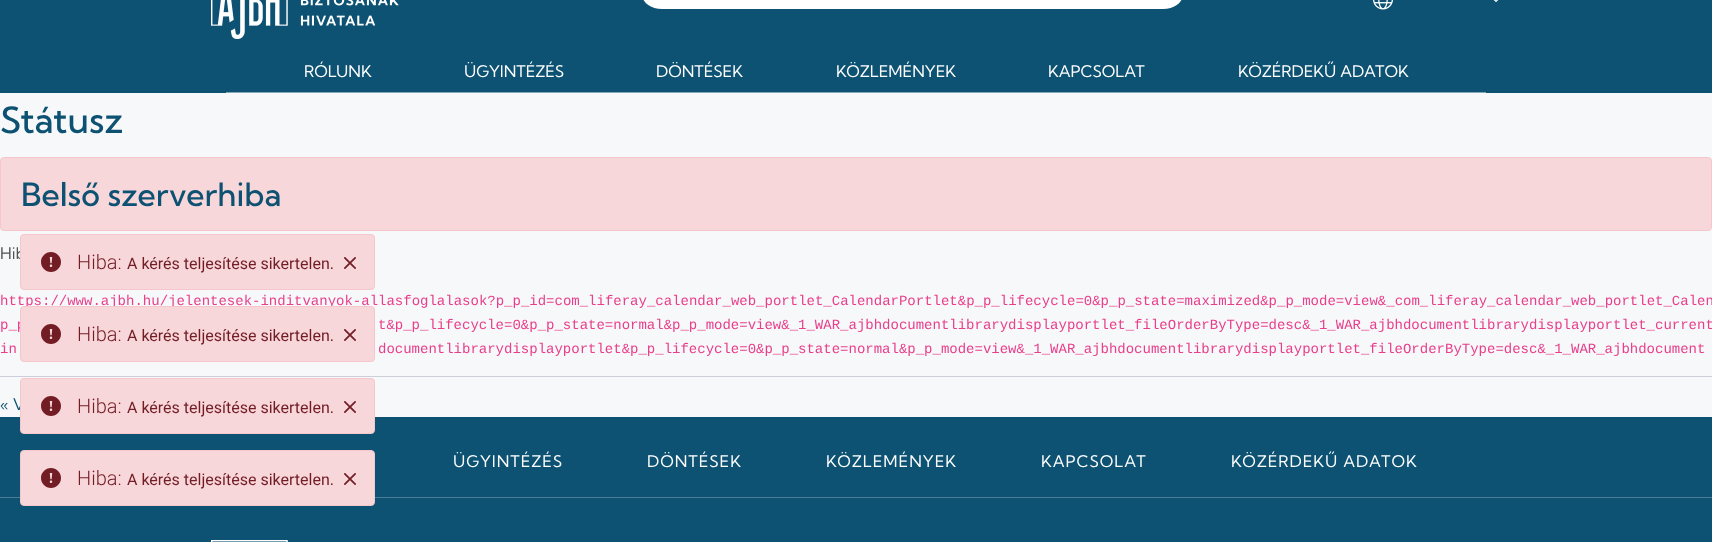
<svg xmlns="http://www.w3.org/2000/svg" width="1712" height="542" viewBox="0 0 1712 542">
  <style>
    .t1 { font: 16px Kumbh Sans; fill: #fff; }
    .t2 { font: 500 36px Kumbh Sans; fill: #0d5272; }
    .t3 { font: 500 32px Kumbh Sans; fill: #0d5272; }
    .t4 { font: 16px Kumbh Sans; fill: #535152; }
    .t5 { font: 14px Liberation Mono; fill: #e83e8c; }
    .t6 { font: 16px Kumbh Sans; fill: #0d5272; }
    .t7 { font: 16px Kumbh Sans; letter-spacing: 1px; fill: #fff; }
    .t8 { font: 300 20px Roboto; fill: #721c24; }
    .t9 { font: 16px Roboto; fill: #721c24; }
  </style>
  <rect width="100%" height="100%" fill="#f7f8f9"/>
  <rect x="0" y="0" width="1712" height="93" fill="#0d5272"/>
  <rect x="642" y="-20" width="541" height="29" rx="20" fill="#fff"/>
  <image x="211" y="0" width="188" height="39" href="images/1.png"/>
  <image x="1373" y="0" width="20" height="10" href="images/2.png"/>
  <image x="1493" y="0" width="6" height="2" href="images/3.png"/>
  <text x="304" y="77" class="t1">RÓLUNK</text>
  <text x="464" y="77" class="t1">ÜGYINTÉZÉS</text>
  <text x="656" y="77" class="t1">DÖNTÉSEK</text>
  <text x="836" y="77" class="t1">KÖZLEMÉNYEK</text>
  <text x="1048" y="77" class="t1">KAPCSOLAT</text>
  <text x="1238" y="77" class="t1">KÖZÉRDEKŰ ADATOK</text>
  <rect x="226" y="92" width="1260" height="1" fill="#86a9b9"/>
  <text x="0" y="133" class="t2">Státusz</text>
  <rect x="0.5" y="157.5" width="1711" height="73" rx="3.5" fill="#f8d7da" stroke="#f5c6cb"/>
  <text x="21" y="206" class="t3">Belső szerverhiba</text>
  <text x="0" y="259" class="t4">Hib</text>
  <text x="0" y="305" class="t5">https://www.ajbh.hu/jelentesek-inditvanyok-allasfoglalasok?p_p_id=com_liferay_calendar_web_portlet_CalendarPortlet&amp;p_p_lifecycle=0&amp;p_p_state=maximized&amp;p_p_mode=view&amp;_com_liferay_calendar_web_portlet_Calen</text>
  <text x="0" y="329" class="t5">p_p</text>
  <text x="378" y="329" class="t5">t&amp;p_p_lifecycle=0&amp;p_p_state=normal&amp;p_p_mode=view&amp;_1_WAR_ajbhdocumentlibrarydisplayportlet_fileOrderByType=desc&amp;_1_WAR_ajbhdocumentlibrarydisplayportlet_current</text>
  <text x="0" y="353" class="t5">in</text>
  <text x="378" y="353" class="t5">documentlibrarydisplayportlet&amp;p_p_lifecycle=0&amp;p_p_state=normal&amp;p_p_mode=view&amp;_1_WAR_ajbhdocumentlibrarydisplayportlet_fileOrderByType=desc&amp;_1_WAR_ajbhdocument</text>
  <rect x="0" y="376" width="1712" height="1" fill="#cdced9"/>
  <text x="0" y="410" class="t6">« V</text>
  <rect x="0" y="417" width="1712" height="125" fill="#0d5272"/>
  <rect x="0" y="497" width="1712" height="1" fill="#4a7d95"/>
  <text x="453" y="467" class="t7">ÜGYINTÉZÉS</text>
  <text x="647" y="467" class="t7">DÖNTÉSEK</text>
  <text x="826" y="467" class="t7">KÖZLEMÉNYEK</text>
  <text x="1041" y="467" class="t7">KAPCSOLAT</text>
  <text x="1231" y="467" class="t7">KÖZÉRDEKŰ ADATOK</text>
  <image x="211" y="540" width="77" height="2" href="images/4.png"/>
  <rect x="20.5" y="234.5" width="354" height="55" rx="3.5" fill="#f8d7da" stroke="#f5c6cb"/>
  <image x="41" y="252" width="20" height="20" href="images/5.png"/>
  <text x="77" y="269" class="t8">Hiba:</text>
  <text x="127" y="269" class="t9">A kérés teljesítése sikertelen.</text>
  <image x="344" y="257" width="12" height="12" href="images/6.png"/>
  <rect x="20.5" y="306.5" width="354" height="55" rx="3.5" fill="#f8d7da" stroke="#f5c6cb"/>
  <image x="41" y="324" width="20" height="20" href="images/5.png"/>
  <text x="77" y="341" class="t8">Hiba:</text>
  <text x="127" y="341" class="t9">A kérés teljesítése sikertelen.</text>
  <image x="344" y="329" width="12" height="12" href="images/6.png"/>
  <rect x="20.5" y="378.5" width="354" height="55" rx="3.5" fill="#f8d7da" stroke="#f5c6cb"/>
  <image x="41" y="396" width="20" height="20" href="images/5.png"/>
  <text x="77" y="413" class="t8">Hiba:</text>
  <text x="127" y="413" class="t9">A kérés teljesítése sikertelen.</text>
  <image x="344" y="401" width="12" height="12" href="images/6.png"/>
  <rect x="20.5" y="450.5" width="354" height="55" rx="3.5" fill="#f8d7da" stroke="#f5c6cb"/>
  <image x="41" y="468" width="20" height="20" href="images/5.png"/>
  <text x="77" y="485" class="t8">Hiba:</text>
  <text x="127" y="485" class="t9">A kérés teljesítése sikertelen.</text>
  <image x="344" y="473" width="12" height="12" href="images/6.png"/>
</svg>
